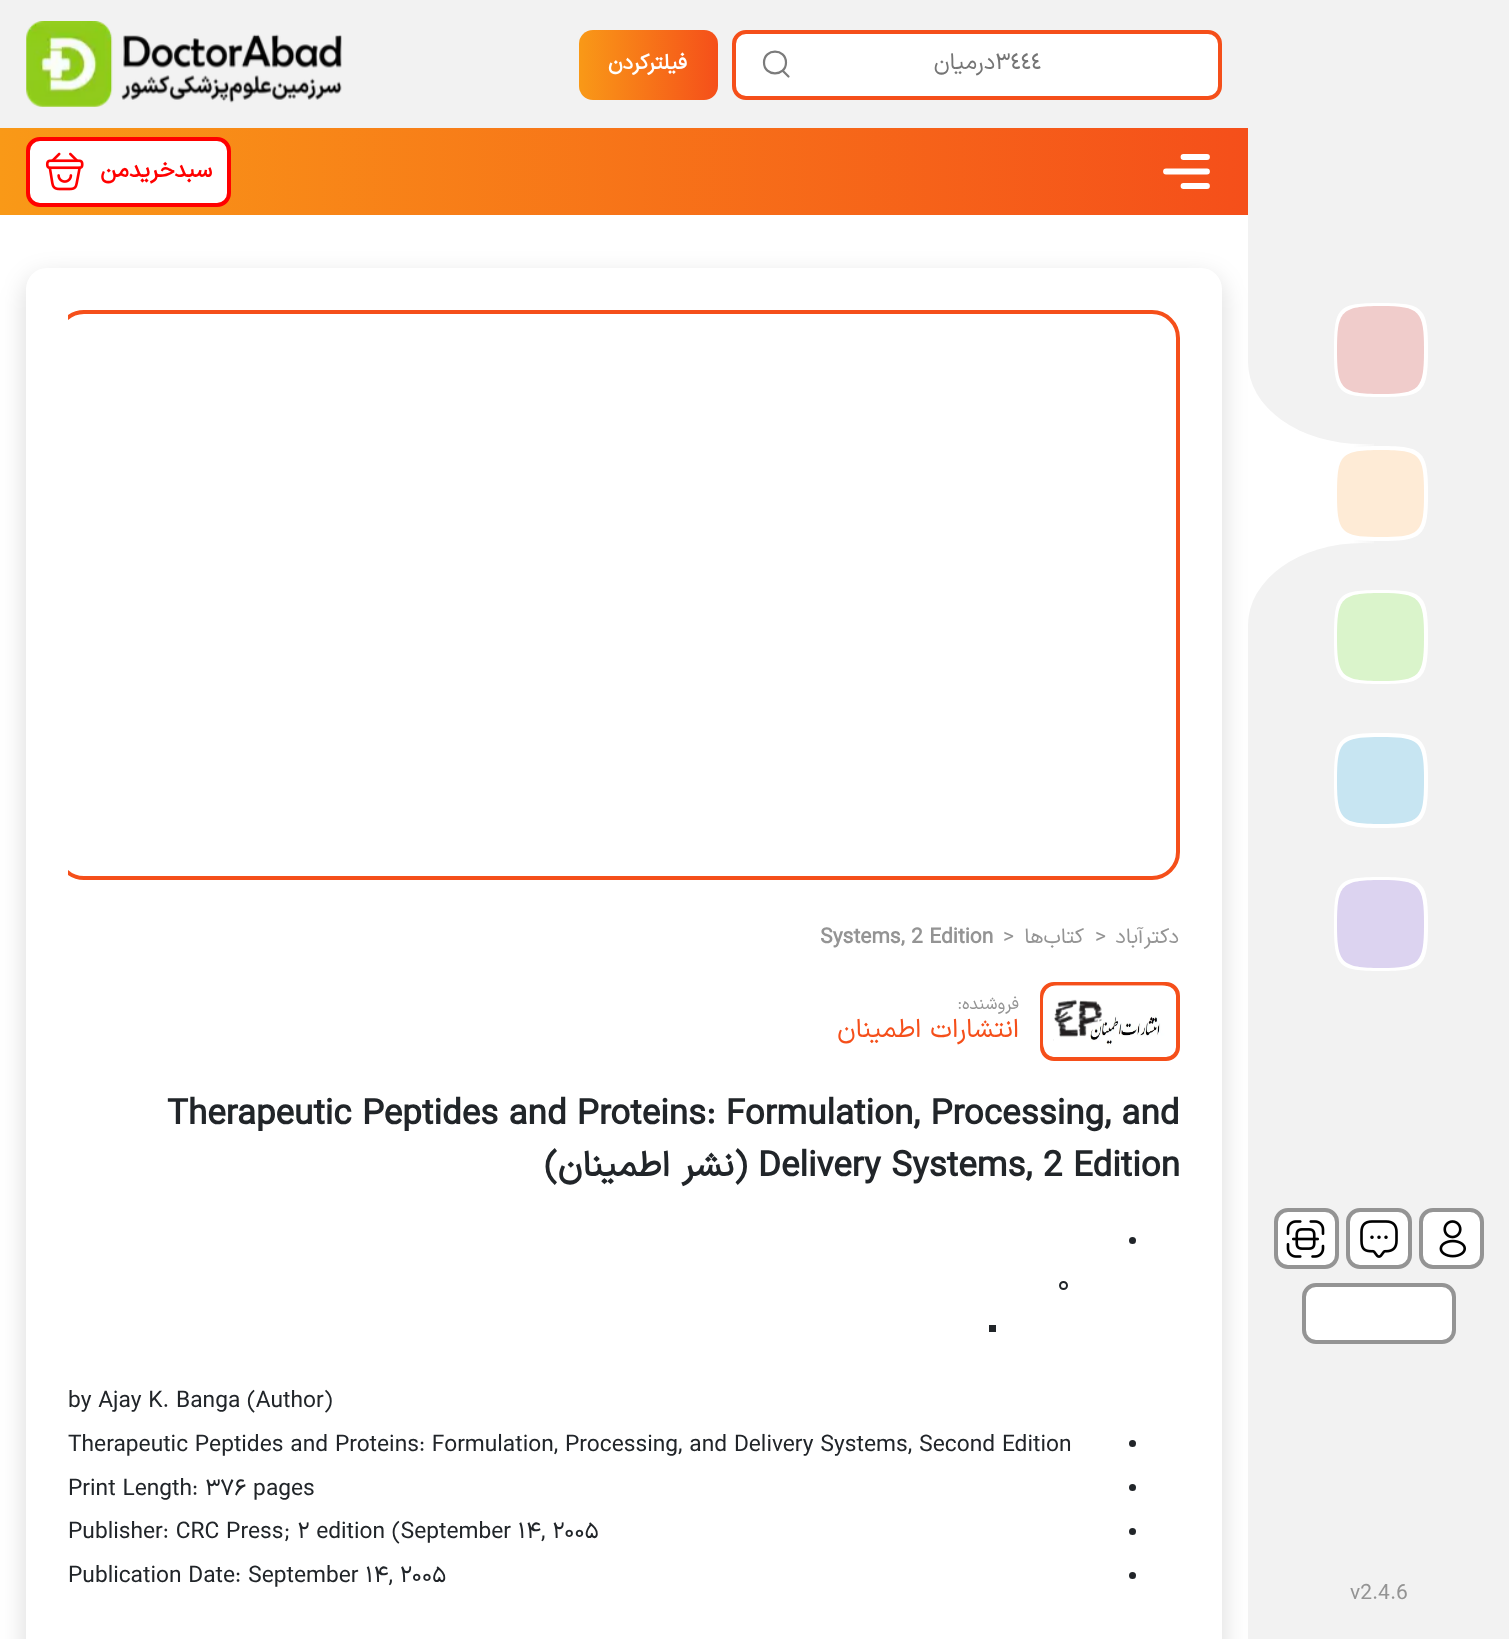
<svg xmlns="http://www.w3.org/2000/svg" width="1509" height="1639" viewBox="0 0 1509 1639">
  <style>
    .t1 { font: bold 21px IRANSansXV; direction: rtl; fill: #fff; }
    .t2 { font: 22.75px IRANSansXV; direction: rtl; fill: #757575; }
    .t3 { font: 22.75px IRANSansXV; fill: #757575; }
    .t4 { font: bold 22.75px IRANSansXV; direction: rtl; fill: #f00; }
    .t5 { font: bold 21px IRANSansXV; fill: #949494; }
    .t6 { font: 21px IRANSansXV; fill: #949494; }
    .t7 { font: 21px IRANSansXV; direction: rtl; fill: #949494; }
    .t8 { font: 17px IRANSansXV; direction: rtl; fill: #949494; }
    .t9 { font: 26.25px IRANSansXV; direction: rtl; fill: #f54f1a; }
    .t10 { font: bold 35px IRANSansXV; fill: #212529; }
    .t11 { font: bold 35px IRANSansXV; direction: rtl; fill: #212529; }
    .t12 { font: 22.75px IRANSansXV; fill: #212529; }
    .t13 { font: 22.75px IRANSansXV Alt; fill: #212529; }
  </style>
  <defs>
    <linearGradient id="g1" gradientUnits="userSpaceOnUse" x1="579" y1="65" x2="718" y2="65"><stop offset="0" stop-color="#f99917"/><stop offset="1" stop-color="#f54f1a"/></linearGradient>
    <linearGradient id="g2" gradientUnits="userSpaceOnUse" x1="0" y1="172" x2="1248" y2="171"><stop offset="0" stop-color="#f99917"/><stop offset="1" stop-color="#f54f1a"/></linearGradient>
    <clipPath id="clip1"><rect x="68" y="310" width="1112" height="584"/></clipPath>
    <linearGradient id="g3" gradientUnits="userSpaceOnUse" x1="1248" y1="494" x2="1379" y2="494"><stop offset="0.8" stop-color="#fff"/><stop offset="1" stop-color="#f2f2f2"/></linearGradient>
    <clipPath id="clip2"><rect x="1248" y="362" width="131" height="263"/></clipPath>
  </defs>
  <rect width="100%" height="100%" fill="#fff"/>
  <rect x="0" y="0" width="1248" height="128" fill="#f2f2f2"/>
  <image x="26" y="21" width="316" height="86" href="images/1.png"/>
  <rect x="579" y="30" width="139" height="70" rx="14" fill="url(#g1)"/>
  <text x="687" y="69" class="t1">فیلترکردن</text>
  <rect x="734" y="32" width="486" height="66" rx="12" fill="#fff" stroke="#f54f1a" stroke-width="4"/>
  <path d="M788.5 76.5L782.5 70.5M786 62.5C786 48 764 48 764 62.5C764 77 786 77 786 62.5Z" fill="none" stroke="#7b7b7b" stroke-width="2.2" stroke-linecap="round" stroke-linejoin="round"/>
  <text x="995" y="69" class="t2">درمیان</text>
  <text x="995" y="69" class="t3">٣٤٤٤</text>
  <rect x="0" y="128" width="1248" height="87" fill="url(#g2)"/>
  <rect x="28" y="139" width="201" height="66" rx="12" fill="#fff" stroke="#f00" stroke-width="4"/>
  <image x="45" y="152" width="39" height="39" href="images/2.png"/>
  <text x="212" y="177" class="t4">سبدخریدمن</text>
  <path d="M1183.5 186H1207M1166 171.5H1207M1183.5 157H1207" fill="none" stroke="#fff" stroke-width="5.8" stroke-linecap="round" stroke-linejoin="round"/>
  <rect x="26" y="277" width="1196" height="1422" rx="21" fill="#00000026" filter="blur(13px)"/>
  <rect x="26" y="268" width="1196" height="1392" rx="21" fill="#fff"/>
  <g clip-path="url(#clip1)">
    <rect x="58" y="312" width="1120" height="566" rx="26" fill="none" stroke="#f54f1a" stroke-width="4"/>
  </g>
  <text x="820" y="943" class="t5">Systems, 2 Edition</text>
  <text x="1003" y="943" class="t6">&gt;</text>
  <text x="1084" y="943" class="t7">کتاب‌‌ها</text>
  <text x="1095" y="943" class="t6">&gt;</text>
  <text x="1179" y="943" class="t7">دکترآباد</text>
  <text x="1019" y="1009" class="t8">فروشنده:</text>
  <text x="1019" y="1037" word-spacing="1" class="t9">انتشارات اطمینان</text>
  <rect x="1042" y="984" width="136" height="75" rx="12" fill="none" stroke="#f54f1a" stroke-width="4"/>
  <image x="1043" y="985" width="133" height="72" href="images/3.png"/>
  <text x="167" y="1124" word-spacing="-0.25" class="t10">Therapeutic Peptides and Proteins: Formulation, Processing, and</text>
  <text x="747" y="1176" word-spacing="1" class="t11">(نشر اطمینان)</text>
  <text x="758" y="1176" class="t10">Delivery Systems, 2 Edition</text>
  <circle cx="1132.5" cy="1240.5" r="3.5" fill="#212529"/>
  <circle cx="1063.5" cy="1285.5" r="3.5" fill="none" stroke="#212529" stroke-width="2"/>
  <rect x="989" y="1325" width="7" height="7" fill="#212529"/>
  <text x="68" y="1407" class="t12">by Ajay K. Banga (Author)</text>
  <text x="68" y="1451" class="t12">Therapeutic Peptides and Proteins: Formulation, Processing, and Delivery Systems, Second Edition</text>
  <circle cx="1132.5" cy="1443.5" r="3.5" fill="#212529"/>
  <text x="68" y="1495" class="t13">Print Length: 376 pages</text>
  <circle cx="1132.5" cy="1487.5" r="3.5" fill="#212529"/>
  <text x="68" y="1538" class="t13">Publisher: CRC Press; 2 edition (September 14, 2005</text>
  <circle cx="1132.5" cy="1531.5" r="3.5" fill="#212529"/>
  <text x="68" y="1582" class="t13">Publication Date: September 14, 2005</text>
  <circle cx="1132.5" cy="1575.5" r="3.5" fill="#212529"/>
  <rect x="1248" y="0" width="261" height="1639" fill="#f2f2f2"/>
  <rect x="1248" y="362" width="126" height="263" fill="url(#g3)"/>
  <g clip-path="url(#clip2)">
    <ellipse cx="1362.5" cy="362" rx="114.5" ry="82" fill="#f2f2f2"/>
  </g>
  <path d="M1334 350C1334 307 1338 303 1381 303C1423 303 1428 307 1428 350C1428 393 1423 397 1381 397C1338 397 1334 393 1334 350" fill="#fff"/>
  <path d="M1337 350C1337 311 1341 306 1381 306C1420 306 1424 311 1424 350C1424 389 1420 394 1381 394C1341 394 1337 389 1337 350" fill="#f0cccb"/>
  <g clip-path="url(#clip2)">
    <ellipse cx="1362.5" cy="625" rx="114.5" ry="82" fill="#f2f2f2"/>
  </g>
  <path d="M1334 494C1334 451 1338 446 1381 446C1423 446 1428 451 1428 494C1428 536 1423 541 1381 541C1338 541 1334 536 1334 494" fill="#fff"/>
  <path d="M1337 494C1337 454 1341 450 1381 450C1420 450 1424 454 1424 494C1424 533 1420 537 1381 537C1341 537 1337 533 1337 494" fill="#feebd6"/>
  <path d="M1334 637C1334 594 1338 590 1381 590C1423 590 1428 594 1428 637C1428 680 1423 684 1381 684C1338 684 1334 680 1334 637" fill="#fff"/>
  <path d="M1337 637C1337 598 1341 593 1381 593C1420 593 1424 598 1424 637C1424 676 1420 681 1381 681C1341 681 1337 676 1337 637" fill="#daf4cb"/>
  <path d="M1334 780C1334 738 1338 733 1381 733C1423 733 1428 738 1428 780C1428 823 1423 828 1381 828C1338 828 1334 823 1334 780" fill="#fff"/>
  <path d="M1337 780C1337 741 1341 737 1381 737C1420 737 1424 741 1424 780C1424 820 1420 824 1381 824C1341 824 1337 820 1337 780" fill="#c7e5f2"/>
  <path d="M1334 924C1334 881 1338 877 1381 877C1423 877 1428 881 1428 924C1428 967 1423 971 1381 971C1338 971 1334 967 1334 924" fill="#fff"/>
  <path d="M1337 924C1337 885 1341 880 1381 880C1420 880 1424 885 1424 924C1424 963 1420 968 1381 968C1341 968 1337 963 1337 924" fill="#dcd3f0"/>
  <rect x="1276" y="1210" width="61" height="57" rx="12" fill="#fff" stroke="#949494" stroke-width="4"/>
  <image x="1286" y="1220" width="39" height="38" href="images/4.png"/>
  <rect x="1348" y="1210" width="62" height="57" rx="12" fill="#fff" stroke="#949494" stroke-width="4"/>
  <image x="1360" y="1220" width="38" height="38" href="images/5.png"/>
  <rect x="1421" y="1210" width="61" height="57" rx="12" fill="#fff" stroke="#949494" stroke-width="4"/>
  <image x="1439" y="1220" width="27" height="38" href="images/6.png"/>
  <rect x="1304" y="1285" width="150" height="57" rx="12" fill="#fff" stroke="#949494" stroke-width="4"/>
  <text x="1350" y="1599" class="t6">v2.4.6</text>
</svg>
